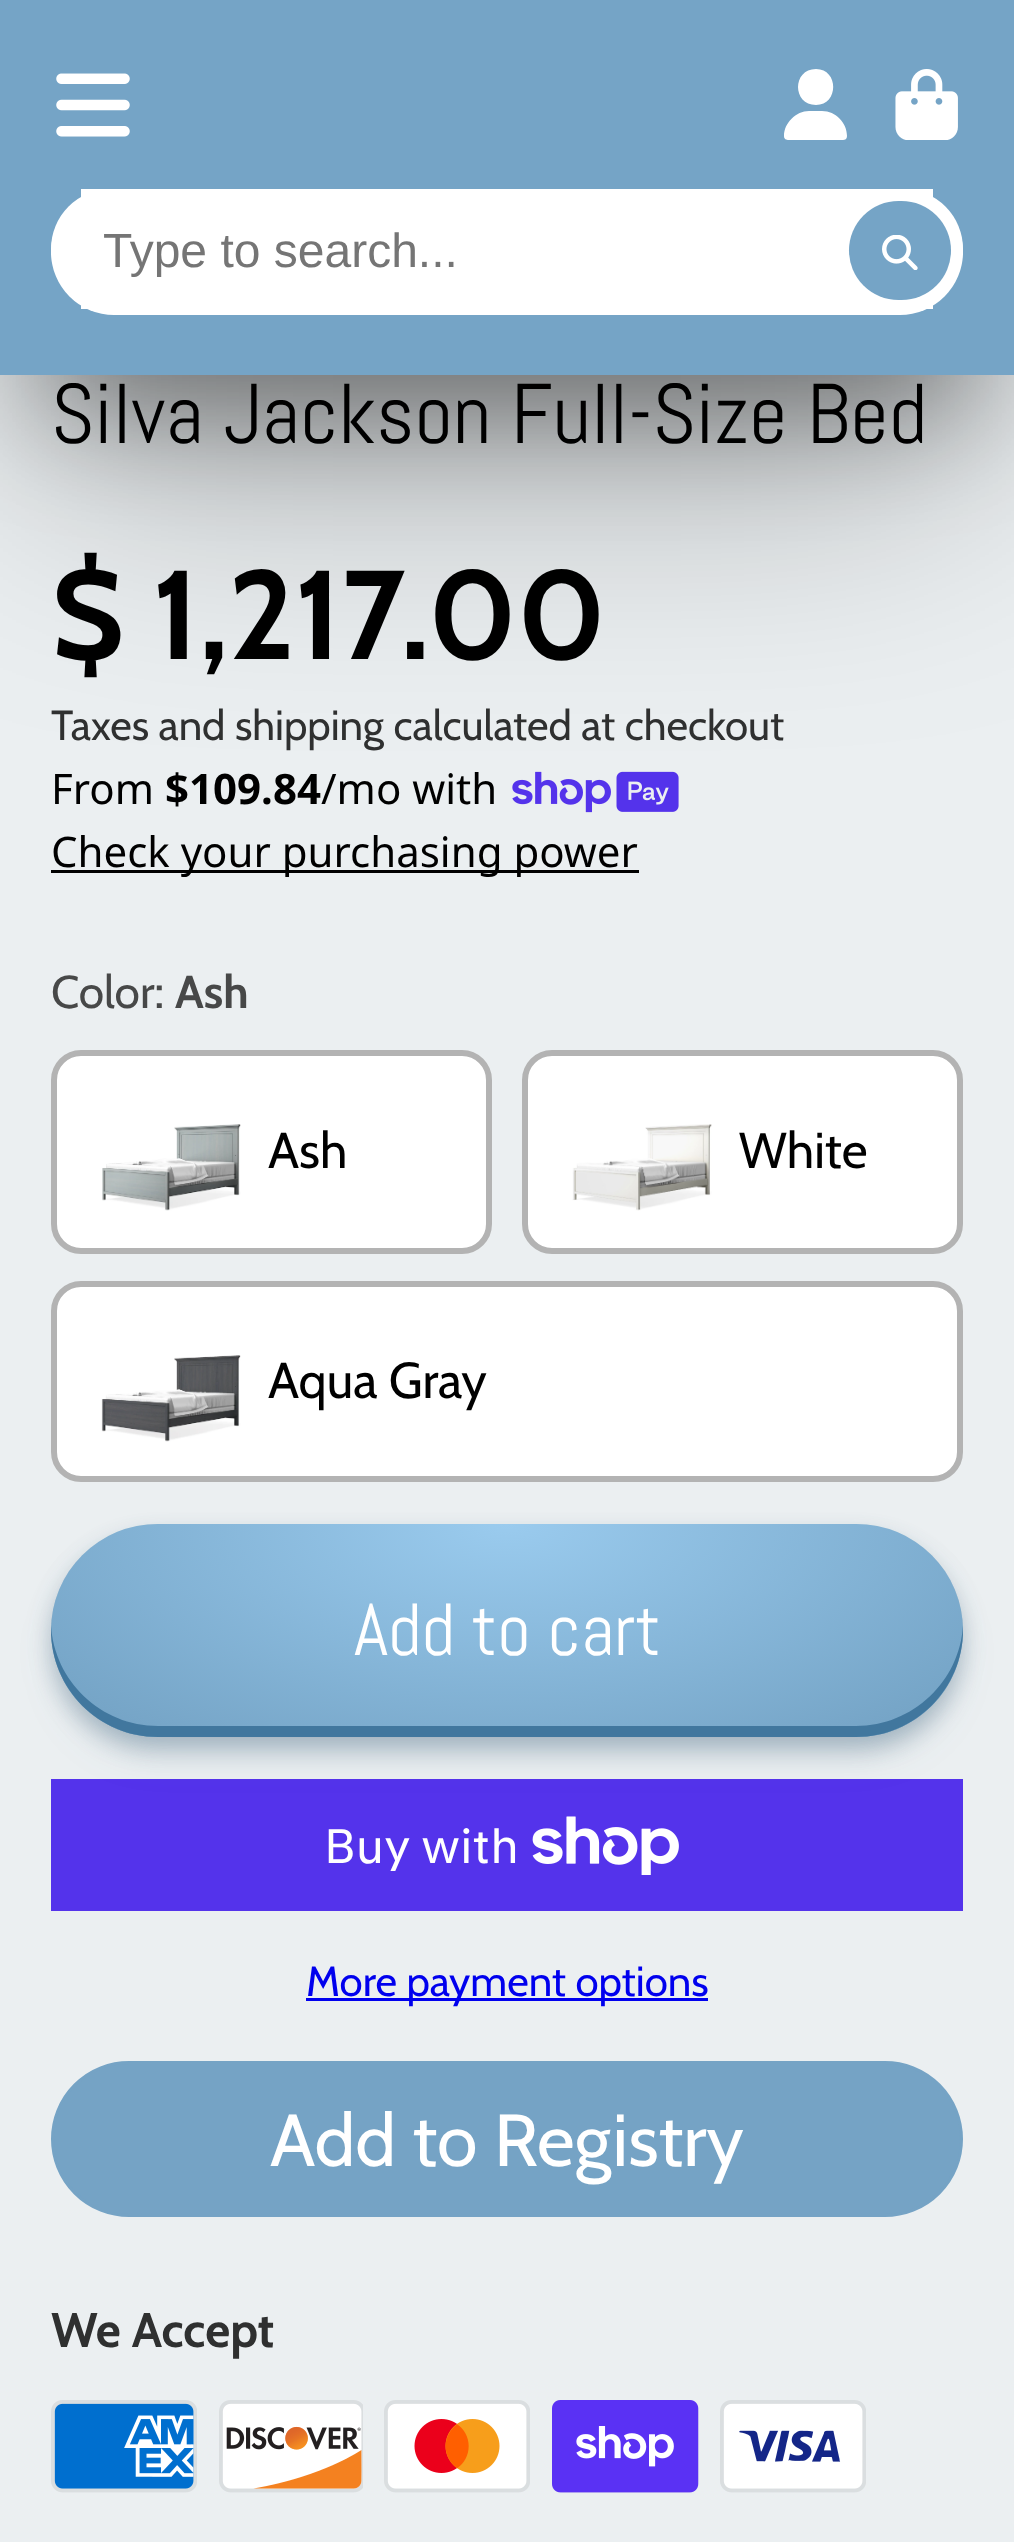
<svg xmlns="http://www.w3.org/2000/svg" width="1014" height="2542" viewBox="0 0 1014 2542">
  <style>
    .t1 { font: 48px Liberation Sans; fill: #757575; }
    .t2 { font: 84.5px Abel; fill: #000; }
    .t3 { font: bold 126px Cabin; fill: #000; }
    .t4 { font: 42px Cabin; fill: #2f3030; }
    .t5 { font: 42px Noto Sans; fill: #000; }
    .t6 { font: bold 42px Noto Sans; fill: #000; }
    .t7 { font: 46px Cabin; fill: #474848; }
    .t8 { font: bold 46px Cabin; fill: #474848; }
    .t9 { font: 50.5px Cabin; fill: #000; }
    .t10 { font: 73.5px Abel; fill: #fff; }
    .t11 { font: 48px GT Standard; fill: #fff; }
    .t12 { font: 42px Cabin; fill: #00e; }
    .t13 { font: 73.5px Cabin; fill: #fff; }
    .t14 { font: bold 48.5px Cabin; fill: #2f3030; }
  </style>
  <defs>
    <clipPath id="clip1"><rect x="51" y="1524" width="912" height="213" rx="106.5"/></clipPath>
    <radialGradient id="g1" gradientUnits="userSpaceOnUse" cx="0" cy="0" r="1" gradientTransform="matrix(645 0 0 301 507 1524)"><stop offset="0" stop-color="#9acbee"/><stop offset="0.9" stop-color="#75a4c6"/></radialGradient>
  </defs>
  <rect width="100%" height="100%" fill="#ebeff1"/>
  <rect x="42" y="120" width="930" height="291" fill="#00000066" filter="blur(58px)"/>
  <image x="512" y="771" width="167" height="42" href="images/4.png"/>
  <rect x="42" y="174" width="930" height="291" fill="#0000004d" filter="blur(131px)"/>
  <rect x="0" y="0" width="1014" height="375" fill="#75a4c6"/>
  <image x="56" y="73" width="74" height="64" href="images/1.png"/>
  <path d="M816 105C839 105 839 69 816 69C792 69 792 105 816 105ZM809 111C796 111 784 123 784 136C784 139 786 140 789 140H843C845 140 847 139 847 136C847 123 836 111 822 111Z" fill="#fff"/>
  <image x="895" y="69" width="63" height="71" href="images/2.png"/>
  <rect x="51" y="189" width="912" height="120" rx="60" fill="#fff"/>
  <rect x="81" y="189" width="852" height="120" fill="#fff"/>
  <rect x="51" y="189" width="912" height="126" rx="63" fill="#fff"/>
  <text x="103" y="267" class="t1">Type to search...</text>
  <rect x="849" y="201" width="102" height="99" rx="49.5" fill="#75a4c6"/>
  <image x="882" y="235" width="36" height="35" href="images/3.png"/>
  <text x="51" y="443" class="t2">Silva Jackson Full-Size Bed</text>
  <text x="51" y="659" class="t3">$ 1,217.00</text>
  <text x="51" y="740" class="t4">Taxes and shipping calculated at checkout</text>
  <text x="51" y="804" class="t5">From</text>
  <text x="165" y="804" class="t6">$109.84</text>
  <text x="321" y="804" class="t5">/mo with</text>
  <rect x="51" y="870" width="588" height="3" fill="#000"/>
  <text x="51" y="867" class="t5">Check your purchasing power</text>
  <text x="51" y="1008" class="t7">Color:</text>
  <text x="175" y="1008" class="t8">Ash</text>
  <rect x="54" y="1053" width="435" height="198" rx="27" fill="#fff" stroke="#b3b3b3" stroke-width="6"/>
  <image x="102" y="1124" width="139" height="87" href="images/5.png"/>
  <text x="268" y="1168" class="t9">Ash</text>
  <rect x="525" y="1053" width="435" height="198" rx="27" fill="#fff" stroke="#b3b3b3" stroke-width="6"/>
  <image x="572" y="1124" width="140" height="87" href="images/6.png"/>
  <text x="739" y="1168" class="t9">White</text>
  <rect x="54" y="1284" width="906" height="195" rx="27" fill="#fff" stroke="#b3b3b3" stroke-width="6"/>
  <image x="101" y="1355" width="140" height="87" href="images/7.png"/>
  <text x="268" y="1398" class="t9">Aqua Gray</text>
  <rect x="51" y="1779" width="912" height="132" fill="#5433eb"/>
  <rect x="63" y="1557" width="888" height="192" rx="96" fill="#2f567326" filter="blur(22px)"/>
  <rect x="51" y="1536" width="912" height="213" rx="106.5" fill="#2f56734d" filter="blur(11px)"/>
  <g clip-path="url(#clip1)">
    <rect x="63" y="1557" width="888" height="192" rx="96" fill="#2f567326" filter="blur(22px)"/>
    <rect x="51" y="1536" width="912" height="213" rx="106.5" fill="#2f56734d" filter="blur(11px)"/>
  </g>
  <rect x="51" y="1524" width="912" height="213" rx="106.5" fill="url(#g1)"/>
  <path d="M51 1625V1630C51 1689 99 1737 158 1737H856C915 1737 963 1689 963 1630V1625C960 1681 913 1726 856 1726H158C101 1726 54 1681 51 1625Z" fill="#41779e"/>
  <text x="354" y="1655" class="t10">Add to cart</text>
  <text x="324" y="1863" class="t11">Buy with</text>
  <image x="532" y="1816" width="147" height="59" href="images/8.png"/>
  <rect x="306" y="1998" width="402" height="3" fill="#00e"/>
  <text x="306" y="1996" class="t12">More payment options</text>
  <rect x="52.5" y="2062.5" width="909" height="153" rx="76.5" fill="#75a3c5" stroke="#75a3c5" stroke-width="3"/>
  <text x="270" y="2166" class="t13">Add to Registry</text>
  <text x="51" y="2347" class="t14">We Accept</text>
  <image x="51" y="2400" width="146" height="93" href="images/9.png"/>
  <image x="219" y="2400" width="144" height="93" href="images/10.png"/>
  <image x="384" y="2400" width="146" height="93" href="images/11.png"/>
  <image x="552" y="2400" width="147" height="93" href="images/12.png"/>
  <image x="720" y="2400" width="146" height="93" href="images/13.png"/>
</svg>
